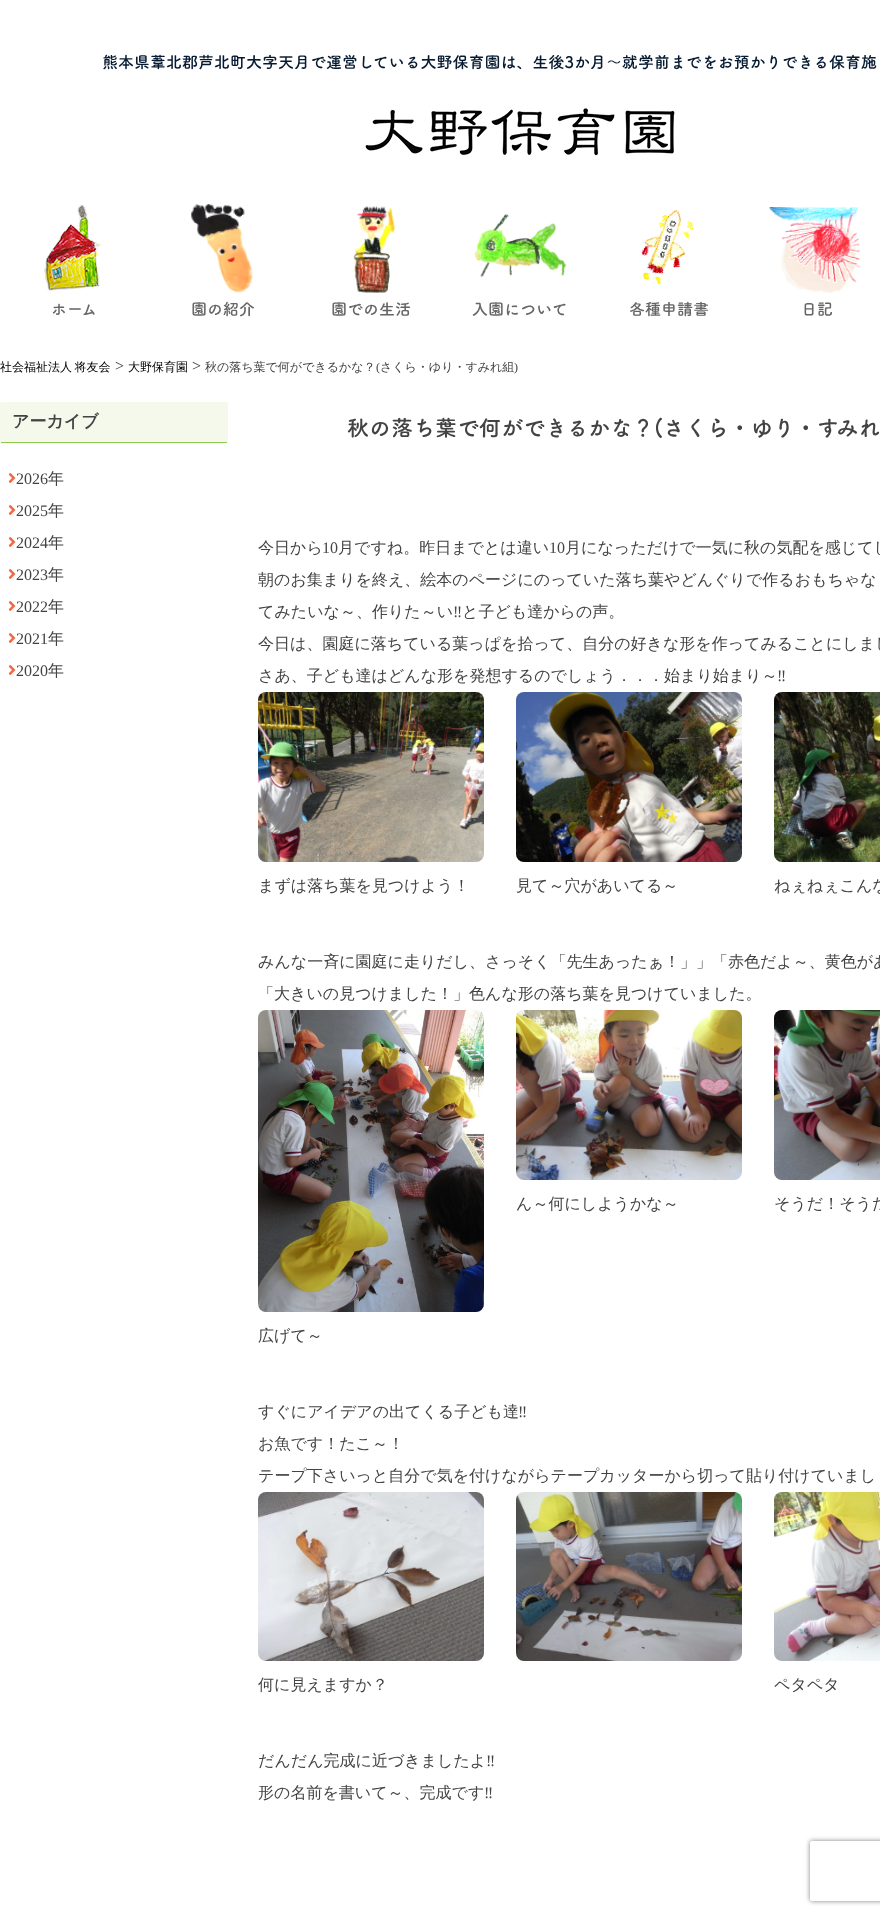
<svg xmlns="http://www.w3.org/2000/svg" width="880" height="1915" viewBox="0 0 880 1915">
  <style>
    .t1 { font: bold 16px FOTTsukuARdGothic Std; fill: #061a31; }
    .t2 { font: bold 16px FOTTsukuARdGothic Std; fill: #666; }
    .t3 { font: 500 12px WenQuanYi Zen Hei; fill: #000; }
    .t4 { font: 16px Liberation Serif; fill: #434343; }
    .t5 { font: 500 12px WenQuanYi Zen Hei; fill: #434343; }
    .t6 { font: 12px Liberation Serif; fill: #434343; }
    .t7 { font: bold 17px WenQuanYi Zen Hei; fill: #434343; }
    .t8 { font: 500 16px WenQuanYi Zen Hei; fill: #434343; }
    .t9 { font: bold 22px FOTTsukuARdGothic Std; fill: #434343; }
  </style>
  <defs>
    <clipPath id="clip1"><path d="M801 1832H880V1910H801ZM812 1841H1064C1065 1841 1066 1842 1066 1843V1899C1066 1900 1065 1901 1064 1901H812C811 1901 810 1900 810 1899V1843C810 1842 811 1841 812 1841Z" clip-rule="evenodd"/></clipPath>
  </defs>
  <rect width="100%" height="100%" fill="#fff"/>
  <text x="102" y="68" class="t1">熊本県葦北郡芦北町大字天月で運営している大野保育園は、生後3か月～就学前までをお預かりできる保育施</text>
  <image x="365" y="108" width="310" height="48" href="images/1.png"/>
  <image x="44" y="204" width="58" height="87" href="images/2.png"/>
  <text x="51" y="315" class="t2">ホーム</text>
  <image x="191" y="204" width="62" height="89" href="images/3.png"/>
  <text x="191" y="315" class="t2">園の紹介</text>
  <image x="353" y="206" width="43" height="87" href="images/4.png"/>
  <text x="331" y="315" class="t2">園での生活</text>
  <image x="474" y="213" width="93" height="65" href="images/5.png"/>
  <text x="472" y="315" class="t2">入園について</text>
  <image x="641" y="210" width="53" height="75" href="images/6.png"/>
  <text x="629" y="315" class="t2">各種申請書</text>
  <image x="781" y="218" width="76" height="75" href="images/7.png"/>
  <image x="769" y="207" width="92" height="76" href="images/8.png"/>
  <text x="801" y="315" class="t2">日記</text>
  <text x="0" y="371" word-spacing="-1" class="t3">社会福祉法人 将友会</text>
  <text x="115" y="371" class="t4">&gt;</text>
  <text x="128" y="371" class="t3">大野保育園</text>
  <text x="192" y="371" class="t4">&gt;</text>
  <text x="205" y="371" class="t5">秋の落ち葉で何ができるかな？</text>
  <text x="376" y="371" class="t6">(</text>
  <text x="380" y="371" class="t5">さくら・ゆり・すみれ組</text>
  <text x="514" y="371" class="t6">)</text>
  <rect x="0" y="402" width="228" height="41" rx="2" fill="#f4f9eb"/>
  <rect x="1" y="442" width="226" height="1" fill="#8cca4e"/>
  <text x="12" y="427" class="t7">アーカイブ</text>
  <image x="8" y="473" width="8" height="10" href="images/9.png"/>
  <text x="16" y="484" class="t4">2026</text>
  <text x="48" y="484" class="t8">年</text>
  <image x="8" y="505" width="8" height="10" href="images/9.png"/>
  <text x="16" y="516" class="t4">2025</text>
  <text x="48" y="516" class="t8">年</text>
  <image x="8" y="537" width="8" height="10" href="images/9.png"/>
  <text x="16" y="548" class="t4">2024</text>
  <text x="48" y="548" class="t8">年</text>
  <image x="8" y="569" width="8" height="10" href="images/9.png"/>
  <text x="16" y="580" class="t4">2023</text>
  <text x="48" y="580" class="t8">年</text>
  <image x="8" y="601" width="8" height="10" href="images/9.png"/>
  <text x="16" y="612" class="t4">2022</text>
  <text x="48" y="612" class="t8">年</text>
  <image x="8" y="633" width="8" height="10" href="images/9.png"/>
  <text x="16" y="644" class="t4">2021</text>
  <text x="48" y="644" class="t8">年</text>
  <image x="8" y="665" width="8" height="10" href="images/9.png"/>
  <text x="16" y="676" class="t4">2020</text>
  <text x="48" y="676" class="t8">年</text>
  <text x="347" y="436" class="t9">秋の落ち葉で何ができるかな？(さくら・ゆり・すみれ</text>
  <text x="258" y="553" class="t8">今日から</text>
  <text x="322" y="553" class="t4">10</text>
  <text x="338" y="553" class="t8">月ですね。昨日までとは違い</text>
  <text x="549" y="553" class="t4">10</text>
  <text x="565" y="553" class="t8">月になっただけで一気に秋の気配を感じてし</text>
  <text x="258" y="585" class="t8">朝のお集まりを終え、絵本のページにのっていた落ち葉やどんぐりで作るおもちゃな</text>
  <text x="258" y="617" class="t8">てみたいな～、作りた～い</text>
  <text x="453" y="617" class="t4">‼</text>
  <text x="462" y="617" class="t8">と子ども達からの声。</text>
  <text x="258" y="649" class="t8">今日は、園庭に落ちている葉っぱを拾って、自分の好きな形を作ってみることにしまし</text>
  <text x="258" y="681" class="t8">さあ、子ども達はどんな形を発想するのでしょう．．．始まり始まり～</text>
  <text x="777" y="681" class="t4">‼</text>
  <image x="258" y="692" width="226" height="170" href="images/10.png"/>
  <text x="258" y="891" class="t8">まずは落ち葉を見つけよう！</text>
  <image x="516" y="692" width="226" height="170" href="images/11.png"/>
  <text x="516" y="891" class="t8">見て～穴があいてる～</text>
  <image x="774" y="692" width="106" height="170" href="images/12.png"/>
  <text x="774" y="891" class="t8">ねぇねぇこんな</text>
  <text x="258" y="967" class="t8">みんな一斉に園庭に走りだし、さっそく「先生あったぁ！」」「赤色だよ～、黄色があ</text>
  <text x="258" y="999" class="t8">「大きいの見つけました！」色んな形の落ち葉を見つけていました。</text>
  <image x="516" y="1010" width="226" height="170" href="images/13.png"/>
  <text x="516" y="1209" class="t8">ん～何にしようかな～</text>
  <image x="774" y="1010" width="106" height="170" href="images/14.png"/>
  <text x="774" y="1209" class="t8">そうだ！そうだ</text>
  <image x="258" y="1010" width="226" height="302" href="images/15.png"/>
  <text x="258" y="1341" class="t8">広げて～</text>
  <text x="258" y="1417" class="t8">すぐにアイデアの出てくる子ども達</text>
  <text x="518" y="1417" class="t4">‼</text>
  <text x="258" y="1449" class="t8">お魚です！たこ～！</text>
  <text x="258" y="1481" class="t8">テープ下さいっと自分で気を付けながらテープカッターから切って貼り付けていまし</text>
  <image x="516" y="1492" width="226" height="169" href="images/16.png"/>
  <image x="258" y="1492" width="226" height="169" href="images/17.png"/>
  <text x="258" y="1690" class="t8">何に見えますか？</text>
  <image x="774" y="1492" width="106" height="169" href="images/18.png"/>
  <text x="774" y="1690" class="t8">ペタペタ</text>
  <text x="258" y="1766" class="t8">だんだん完成に近づきましたよ</text>
  <text x="486" y="1766" class="t4">‼</text>
  <text x="258" y="1798" class="t8">形の名前を書いて～、完成です</text>
  <text x="484" y="1798" class="t4">‼</text>
  <g clip-path="url(#clip1)">
    <rect x="810" y="1841" width="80" height="60" rx="2" fill="#808080" filter="blur(2.5px)"/>
  </g>
</svg>
